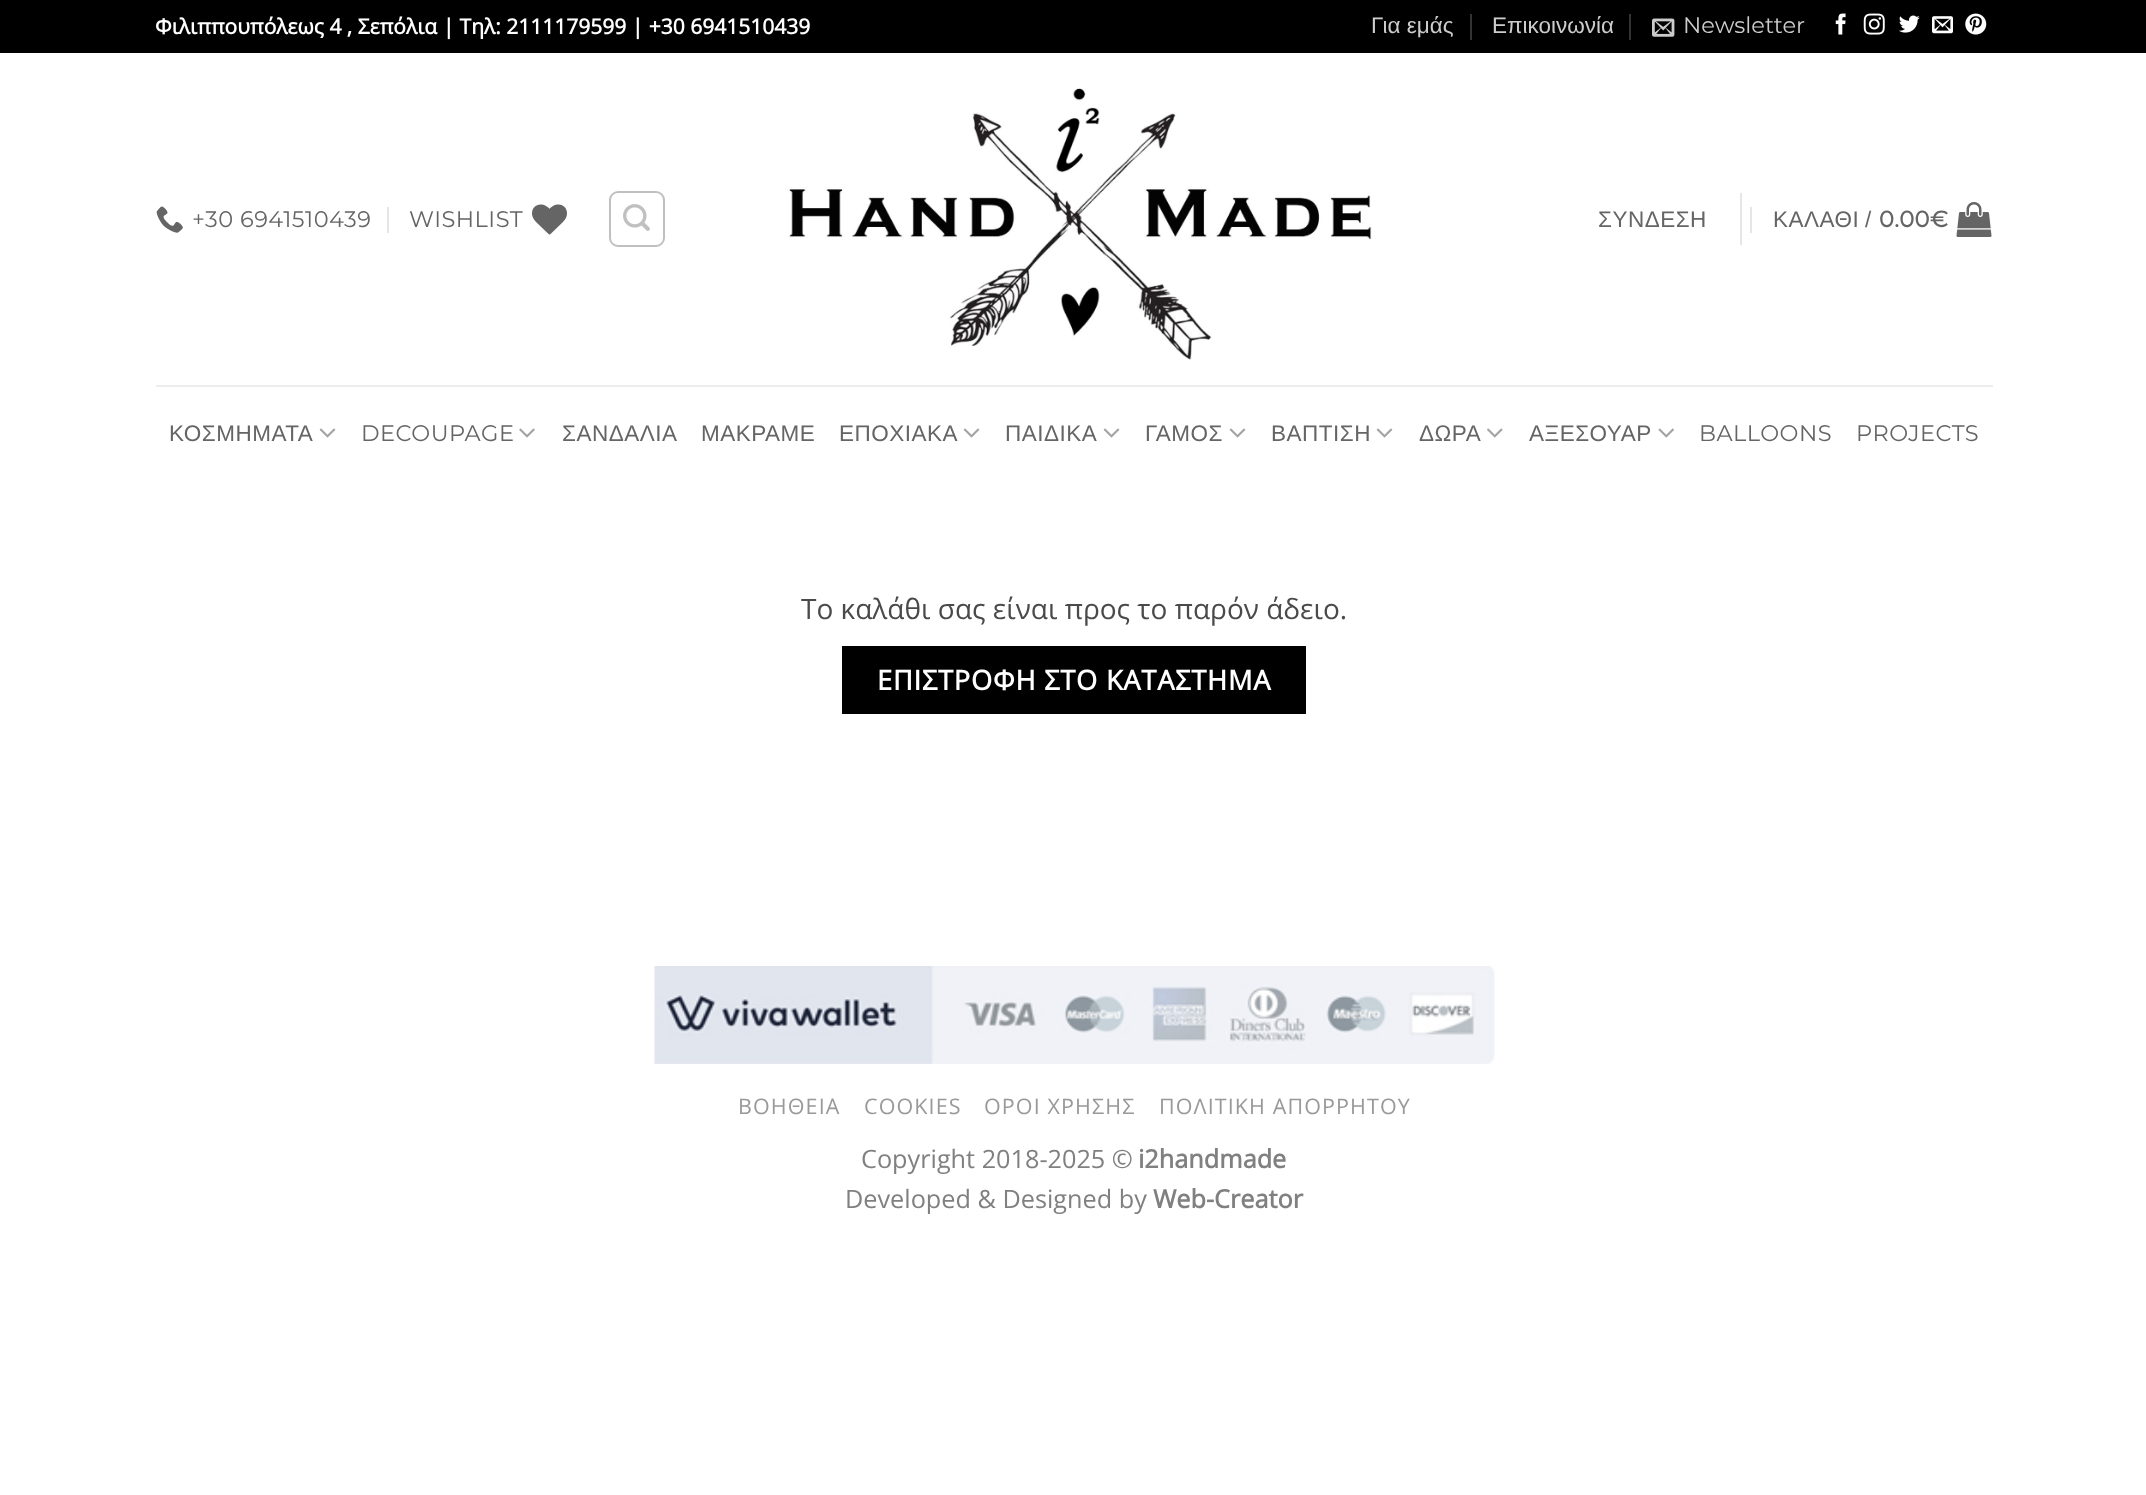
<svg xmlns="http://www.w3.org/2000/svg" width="2146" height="1495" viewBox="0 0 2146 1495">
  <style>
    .t1 { font: bold 21px Open Sans; fill: #fff; }
    .t2 { font: 22.5px Liberation Sans; fill: #ccc; }
    .t3 { font: 100 22.5px Montserrat; fill: #ccc; }
    .t4 { font: 100 22.5px Montserrat; letter-spacing: 0.5px; fill: #656565; }
    .t5 { font: 22.5px Liberation Sans; letter-spacing: 0.5px; fill: #656565; }
    .t6 { font: bold 22.5px Montserrat; letter-spacing: 0.5px; fill: #656565; }
    .t7 { font: 28px Open Sans; fill: #4a4a4a; }
    .t8 { font: bold 27.2px Open Sans; letter-spacing: 0.8px; fill: #fff; }
    .t9 { font: 21.5px Open Sans; letter-spacing: 1.1px; fill: #999; }
    .t10 { font: 25.25px Open Sans; fill: #808080; }
    .t11 { font: bold 25.25px Open Sans; fill: #808080; }
  </style>
  <rect width="100%" height="100%" fill="#fff"/>
  <rect x="0" y="0" width="2146" height="53" fill="#000"/>
  <text x="155" y="34" class="t1">Φιλιππουπόλεως 4 , Σεπόλια | Τηλ: 2111179599 | +30 6941510439</text>
  <text x="1371" y="33" class="t2">Για εμάς</text>
  <rect x="1470" y="14" width="2" height="26" fill="#333"/>
  <text x="1492" y="33" class="t2">Επικοινωνία</text>
  <rect x="1629" y="14" width="2" height="26" fill="#333"/>
  <image x="1652" y="18" width="23" height="19" href="images/1.png"/>
  <text x="1683" y="33" class="t3">Newsletter</text>
  <image x="1835" y="13" width="11" height="22" href="images/2.png"/>
  <image x="1863" y="13" width="22" height="22" href="images/3.png"/>
  <image x="1899" y="15" width="21" height="18" href="images/4.png"/>
  <image x="1932" y="16" width="21" height="18" href="images/5.png"/>
  <image x="1965" y="13" width="22" height="22" href="images/6.png"/>
  <image x="156" y="206" width="27" height="27" href="images/7.png"/>
  <text x="192" y="227" class="t4">+30 6941510439</text>
  <rect x="387" y="207" width="2" height="26" fill="#e6e6e6"/>
  <text x="409" y="227" class="t4">WISHLIST</text>
  <image x="532" y="204" width="35" height="31" href="images/8.png"/>
  <rect x="610" y="192" width="54" height="54" rx="8" fill="none" stroke="#c0c0c0" stroke-width="2"/>
  <image x="623" y="204" width="27" height="27" href="images/9.png"/>
  <image x="788" y="88" width="584" height="272" href="images/10.png"/>
  <text x="1598" y="227" class="t5">ΣΥΝΔΕΣΗ</text>
  <rect x="1740" y="193" width="2" height="52" fill="#e6e6e6"/>
  <rect x="1750" y="207" width="2" height="26" fill="#e6e6e6"/>
  <text x="1773" y="227" class="t5">ΚΑΛΑΘΙ</text>
  <text x="1865" y="227" class="t5">/</text>
  <text x="1879" y="227" class="t6">0.00€</text>
  <image x="1956" y="202" width="36" height="35" href="images/11.png"/>
  <rect x="156" y="385" width="1837" height="2" fill="#ededed"/>
  <text x="169" y="441" class="t5">ΚΟΣΜΗΜΑΤΑ</text>
  <image x="319" y="428" width="17" height="10" href="images/12.png"/>
  <text x="361" y="441" class="t4">DECOUPAGE</text>
  <image x="519" y="428" width="16" height="10" href="images/13.png"/>
  <text x="562" y="441" class="t5">ΣΑΝΔΑΛΙΑ</text>
  <text x="701" y="441" class="t5">ΜΑΚΡΑΜΕ</text>
  <text x="839" y="441" class="t5">ΕΠΟΧΙΑΚΑ</text>
  <image x="963" y="428" width="17" height="10" href="images/12.png"/>
  <text x="1005" y="441" class="t5">ΠΑΙΔΙΚΑ</text>
  <image x="1103" y="428" width="17" height="10" href="images/12.png"/>
  <text x="1145" y="441" class="t5">ΓΑΜΟΣ</text>
  <image x="1229" y="428" width="17" height="10" href="images/12.png"/>
  <text x="1271" y="441" class="t5">ΒΑΠΤΙΣΗ</text>
  <image x="1376" y="428" width="17" height="10" href="images/12.png"/>
  <text x="1419" y="441" class="t5">ΔΩΡΑ</text>
  <image x="1487" y="428" width="16" height="10" href="images/14.png"/>
  <text x="1529" y="441" class="t5">ΑΞΕΣΟΥΑΡ</text>
  <image x="1658" y="428" width="16" height="10" href="images/15.png"/>
  <text x="1699" y="441" class="t4">BALLOONS</text>
  <text x="1856" y="441" class="t4">PROJECTS</text>
  <text x="801" y="619" class="t7">Το καλάθι σας είναι προς το παρόν άδειο.</text>
  <rect x="842" y="646" width="464" height="68" fill="#000"/>
  <text x="877" y="690" class="t8">ΕΠΙΣΤΡΟΦΗ ΣΤΟ ΚΑΤΑΣΤΗΜΑ</text>
  <image x="654" y="966" width="841" height="98" href="images/16.png"/>
  <text x="738" y="1114" class="t9">ΒΟΗΘΕΙΑ</text>
  <text x="864" y="1114" class="t9">COOKIES</text>
  <text x="984" y="1114" class="t9">ΟΡΟΙ ΧΡΗΣΗΣ</text>
  <text x="1159" y="1114" class="t9">ΠΟΛΙΤΙΚΗ ΑΠΟΡΡΗΤΟΥ</text>
  <text x="861" y="1168" class="t10">Copyright 2018-2025 ©</text>
  <text x="1138" y="1168" class="t11">i2handmade</text>
  <text x="845" y="1208" class="t10">Developed &amp; Designed by</text>
  <text x="1153" y="1208" class="t11">Web-Creator</text>
</svg>
